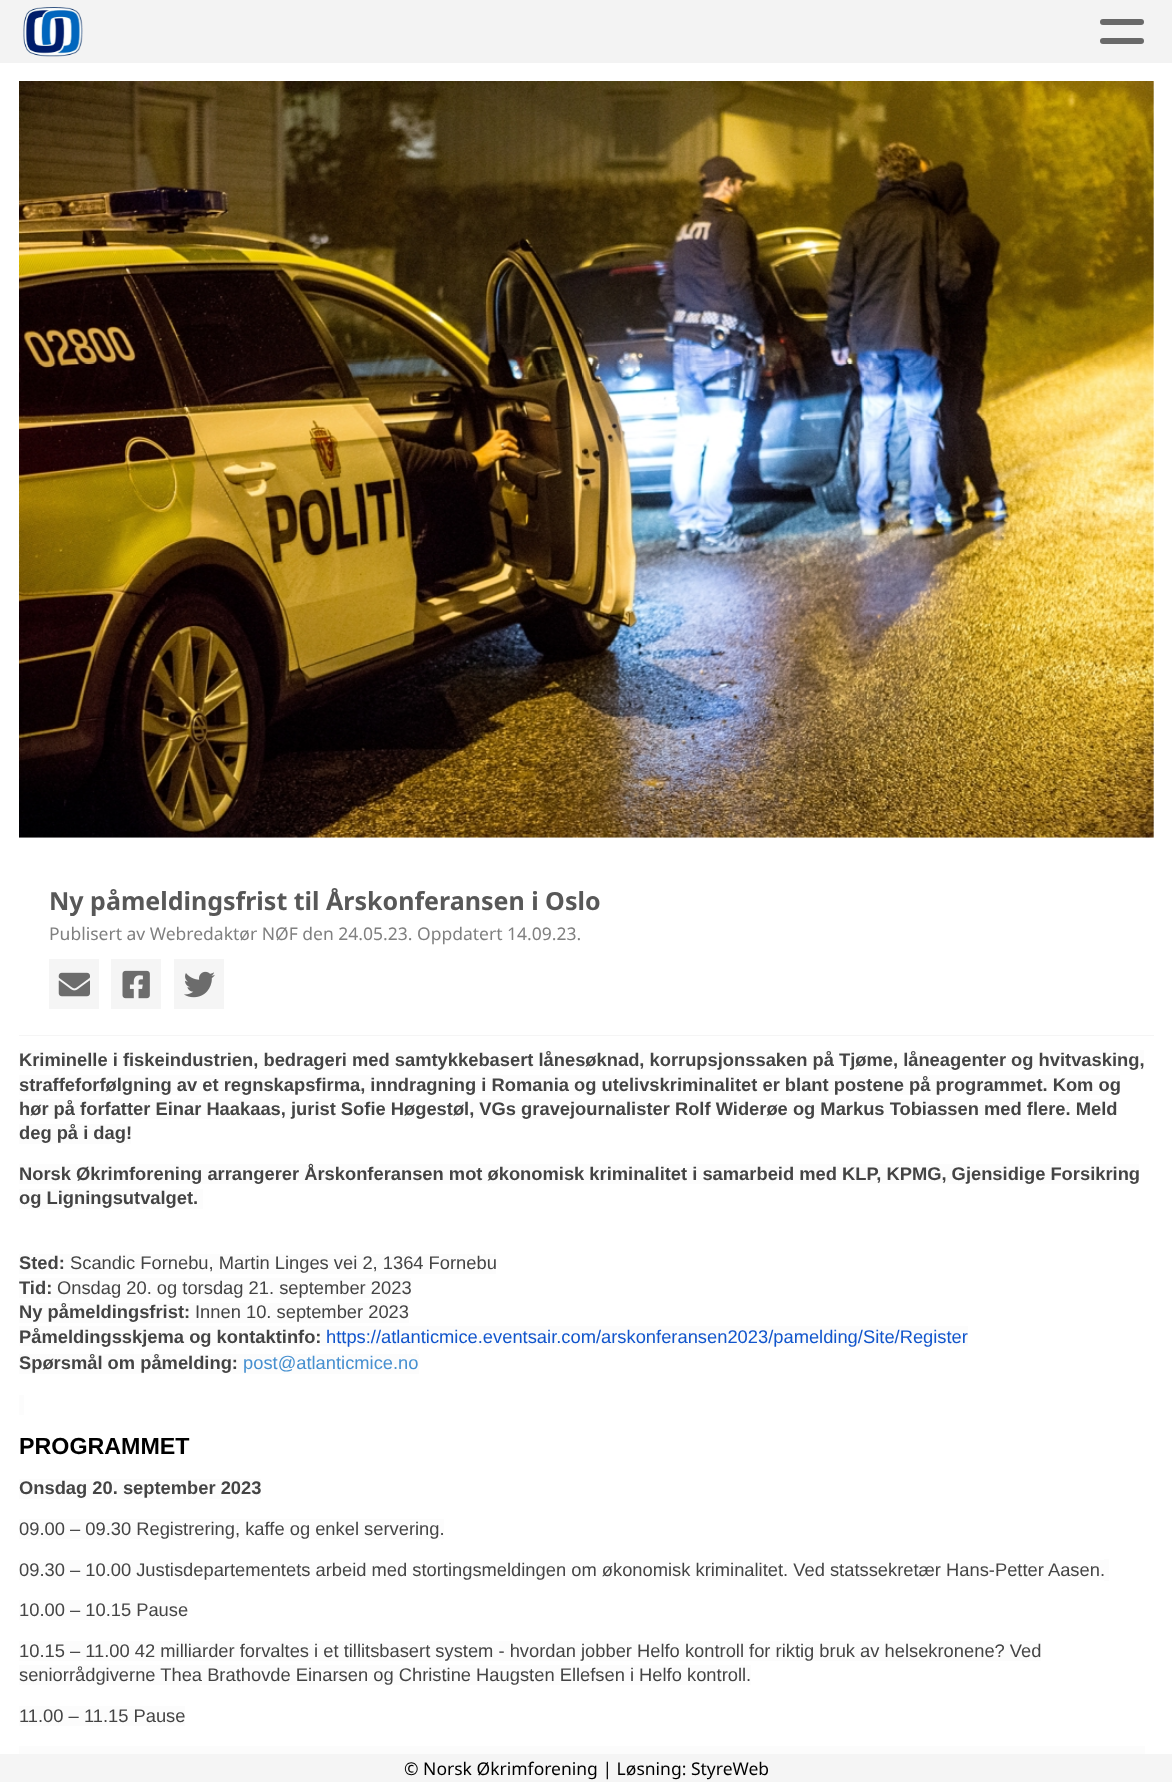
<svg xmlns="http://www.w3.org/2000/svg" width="1172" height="1782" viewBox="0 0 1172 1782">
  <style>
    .t1 { font: bold 25px Noto Sans; fill: #585858; }
    .t2 { font: 17.5px Noto Sans; fill: #808080; }
    .t3 { font: bold 18.33px Liberation Sans; fill: #444; }
    .t4 { font: 18.33px Liberation Sans; fill: #444; }
    .t5 { font: 18.33px Liberation Sans; fill: #15c; }
    .t6 { font: 18.33px Liberation Sans; fill: #4690d0; }
    .t7 { font: bold 23.25px Liberation Sans; fill: #000; }
    .t8 { font: 17.5px Noto Sans; fill: #000; }
  </style>
  <rect width="100%" height="100%" fill="#fff"/>
  <rect x="0" y="0" width="1172" height="63" fill="#f3f3f3"/>
  <image x="23" y="7" width="60" height="50" href="images/1.png"/>
  <rect x="1100" y="19" width="44" height="6" rx="3" fill="#696969"/>
  <rect x="1100" y="38" width="44" height="6" rx="3" fill="#696969"/>
  <image x="19" y="81" width="1135" height="757" href="images/2.png"/>
  <rect x="19" y="1035" width="1135" height="1" fill="#f5f5f5"/>
  <text x="49" y="910" class="t1">Ny påmeldingsfrist til Årskonferansen i Oslo</text>
  <text x="49" y="940" class="t2">Publisert av Webredaktør NØF den 24.05.23. Oppdatert 14.09.23.</text>
  <rect x="49" y="959" width="50" height="50" fill="#f5f5f5"/>
  <image x="58" y="972" width="32" height="25" href="images/3.png"/>
  <rect x="111" y="959" width="50" height="50" fill="#f5f5f5"/>
  <image x="122" y="970" width="28" height="29" href="images/4.png"/>
  <rect x="174" y="959" width="50" height="50" fill="#f5f5f5"/>
  <image x="184" y="971" width="31" height="27" href="images/5.png"/>
  <rect x="19" y="1050" width="1125" height="20" fill="#fcfcfc"/>
  <text x="19" y="1066" class="t3">Kriminelle i fiskeindustrien, bedrageri med samtykkebasert lånesøknad, korrupsjonssaken på Tjøme, låneagenter og hvitvasking,</text>
  <rect x="19" y="1075" width="1101" height="20" fill="#fcfcfc"/>
  <text x="19" y="1091" class="t3">straffeforfølgning av et regnskapsfirma, inndragning i Romania og utelivskriminalitet er blant postene på programmet. Kom og</text>
  <rect x="19" y="1099" width="1097" height="20" fill="#fcfcfc"/>
  <text x="19" y="1115" class="t3">hør på forfatter Einar Haakaas, jurist Sofie Høgestøl, VGs gravejournalister Rolf Widerøe og Markus Tobiassen med flere. Meld</text>
  <rect x="19" y="1124" width="112" height="20" fill="#fcfcfc"/>
  <text x="19" y="1139" class="t3">deg på i dag!</text>
  <rect x="19" y="1164" width="1120" height="20" fill="#fcfcfc"/>
  <text x="19" y="1180" class="t3">Norsk Økrimforening arrangerer Årskonferansen mot økonomisk kriminalitet i samarbeid med KLP, KPMG, Gjensidige Forsikring</text>
  <rect x="19" y="1189" width="184" height="20" fill="#fcfcfc"/>
  <text x="19" y="1204" class="t3">og Ligningsutvalget.</text>
  <rect x="19" y="1254" width="477" height="20" fill="#fcfcfc"/>
  <text x="19" y="1269" class="t3">Sted:</text>
  <text x="70" y="1269" class="t4">Scandic Fornebu, Martin Linges vei 2, 1364 Fornebu</text>
  <rect x="19" y="1278" width="392" height="20" fill="#fcfcfc"/>
  <text x="19" y="1294" class="t3">Tid:</text>
  <text x="57" y="1294" class="t4">Onsdag 20. og torsdag 21. september 2023</text>
  <rect x="19" y="1303" width="390" height="20" fill="#fcfcfc"/>
  <text x="19" y="1318" class="t3">Ny påmeldingsfrist:</text>
  <text x="195" y="1318" class="t4">Innen 10. september 2023</text>
  <rect x="19" y="1326" width="949" height="20" fill="#fcfcfc"/>
  <text x="19" y="1343" class="t3">Påmeldingsskjema og kontaktinfo:</text>
  <text x="326" y="1343" class="t5">https://atlanticmice.eventsair.com/arskonferansen2023/pamelding/</text>
  <text x="863" y="1343" class="t5">Site/Register</text>
  <rect x="19" y="1354" width="400" height="20" fill="#fcfcfc"/>
  <text x="19" y="1369" class="t3">Spørsmål om påmelding:</text>
  <text x="243" y="1369" class="t6">post@atlanticmice.no</text>
  <rect x="19" y="1395" width="5" height="20" fill="#fcfcfc"/>
  <text x="19" y="1454" class="t7">PROGRAMMET</text>
  <rect x="19" y="1479" width="242" height="20" fill="#fcfcfc"/>
  <text x="19" y="1494" class="t3">Onsdag 20. september 2023</text>
  <rect x="19" y="1519" width="425" height="20" fill="#fcfcfc"/>
  <text x="19" y="1535" class="t4">09.00 – 09.30 Registrering, kaffe og enkel servering.</text>
  <rect x="19" y="1560" width="1085" height="20" fill="#fcfcfc"/>
  <text x="19" y="1576" class="t4">09.30 – 10.00 Justisdepartementets arbeid med stortingsmeldingen om økonomisk kriminalitet. Ved statssekretær Hans-Petter Aasen.</text>
  <rect x="1104" y="1559" width="5" height="22" fill="#fcfcfc"/>
  <rect x="19" y="1600" width="169" height="20" fill="#fcfcfc"/>
  <text x="19" y="1616" class="t4">10.00 – 10.15 Pause</text>
  <rect x="19" y="1641" width="1022" height="20" fill="#fcfcfc"/>
  <text x="19" y="1657" class="t4">10.15 – 11.00 42 milliarder forvaltes i et tillitsbasert system - hvordan jobber Helfo kontroll for riktig bruk av helsekronene? Ved</text>
  <rect x="19" y="1665" width="732" height="20" fill="#fcfcfc"/>
  <text x="19" y="1681" class="t4">seniorrådgiverne Thea Brathovde Einarsen og Christine Haugsten Ellefsen i Helfo kontroll.</text>
  <rect x="19" y="1706" width="166" height="20" fill="#fcfcfc"/>
  <text x="19" y="1722" class="t4">11.00 – 11.15 Pause</text>
  <rect x="19" y="1746" width="1126" height="8" fill="#fcfcfc"/>
  <rect x="0" y="1754" width="1172" height="28" fill="#f5f5f5"/>
  <text x="404" y="1775" class="t8">© Norsk Økrimforening | Løsning: StyreWeb</text>
</svg>
